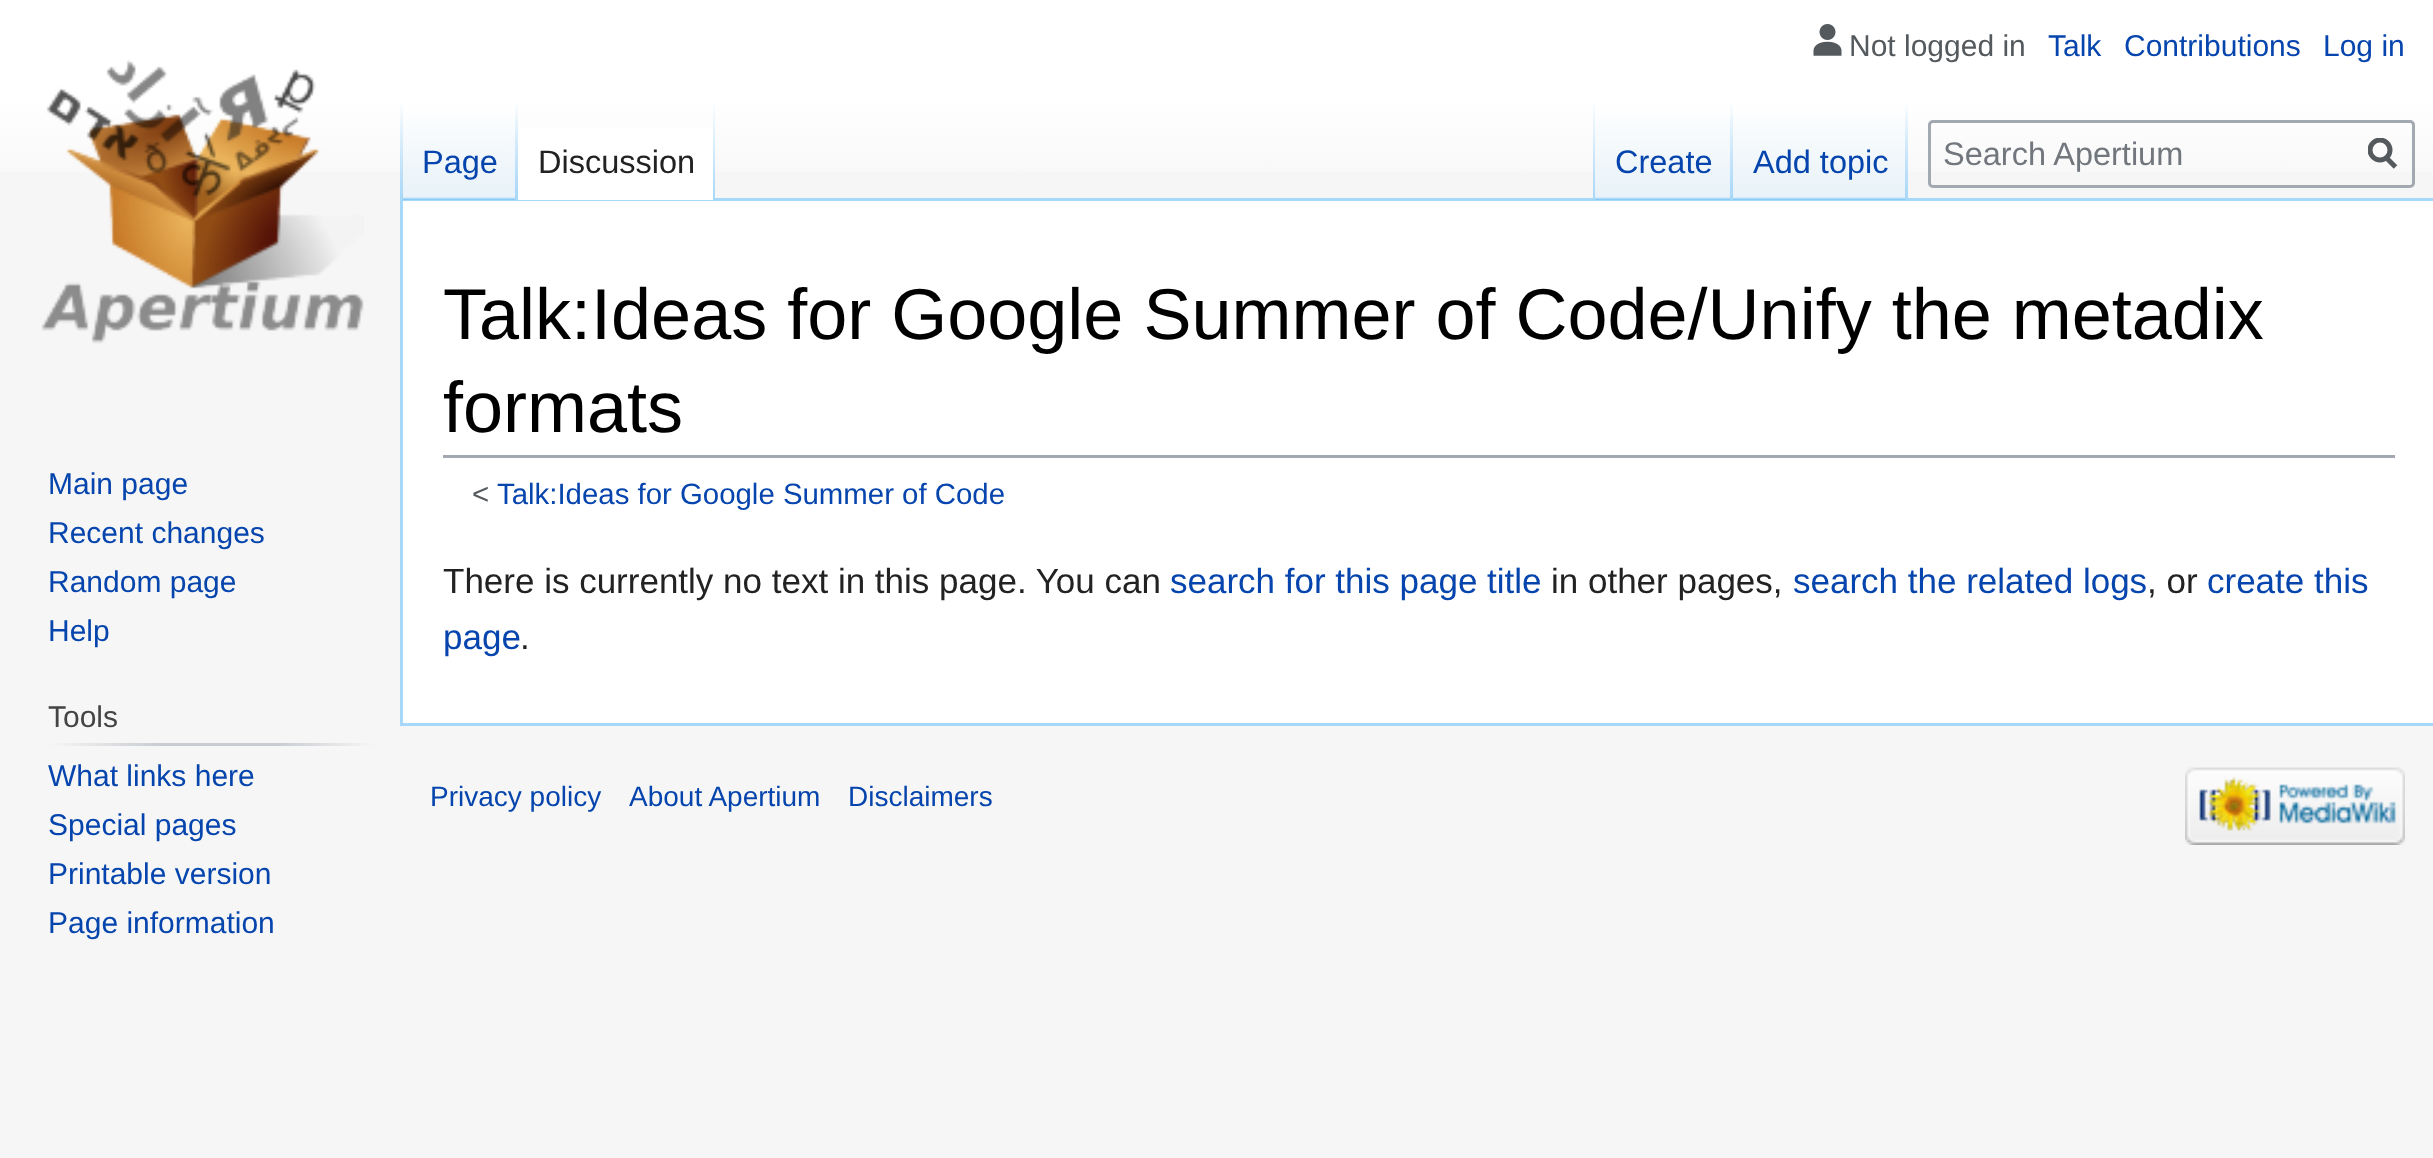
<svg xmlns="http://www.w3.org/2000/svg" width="2433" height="1158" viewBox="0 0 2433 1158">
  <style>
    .t1 { font: 30px Liberation Sans; fill: #54595d; }
    .t2 { font: 30px Liberation Sans; fill: #0645ad; }
    .t3 { font: 32.5px Liberation Sans; fill: #0645ad; }
    .t4 { font: 32.5px Liberation Sans; fill: #222; }
    .t5 { font: 32.5px Liberation Sans; fill: #72777d; }
    .t6 { font: 30px Liberation Sans; fill: #444; }
    .t7 { font: 72px Liberation Sans; fill: #000; }
    .t8 { font: 29.4px Liberation Sans; fill: #54595d; }
    .t9 { font: 29.4px Liberation Sans; fill: #0645ad; }
    .t10 { font: 35px Liberation Sans; fill: #222; }
    .t11 { font: 35px Liberation Sans; fill: #0645ad; }
    .t12 { font: 28px Liberation Sans; fill: #0645ad; }
  </style>
  <defs>
    <linearGradient id="g1" gradientUnits="userSpaceOnUse" x1="1218" y1="0" x2="1218" y2="200"><stop offset="0.5" stop-color="#fff"/><stop offset="1" stop-color="#f6f6f6"/></linearGradient>
    <linearGradient id="g2" gradientUnits="userSpaceOnUse" x1="401" y1="100" x2="401" y2="200"><stop offset="0" stop-color="#a7d7f9" stop-opacity="0"/><stop offset="1" stop-color="#a7d7f9"/></linearGradient>
    <linearGradient id="g3" gradientUnits="userSpaceOnUse" x1="460" y1="200" x2="460" y2="100"><stop offset="0" stop-color="#77c1f6"/><stop offset="0.03" stop-color="#e8f2f8"/><stop offset="1" stop-color="#fff"/></linearGradient>
    <linearGradient id="g4" gradientUnits="userSpaceOnUse" x1="516" y1="100" x2="516" y2="200"><stop offset="0" stop-color="#a7d7f9" stop-opacity="0"/><stop offset="1" stop-color="#a7d7f9"/></linearGradient>
    <linearGradient id="g5" gradientUnits="userSpaceOnUse" x1="714" y1="100" x2="714" y2="200"><stop offset="0" stop-color="#fff"/><stop offset="1" stop-color="#a7d7f9"/></linearGradient>
    <linearGradient id="g6" gradientUnits="userSpaceOnUse" x1="1594" y1="100" x2="1594" y2="200"><stop offset="0" stop-color="#a7d7f9" stop-opacity="0"/><stop offset="1" stop-color="#a7d7f9"/></linearGradient>
    <linearGradient id="g7" gradientUnits="userSpaceOnUse" x1="1664" y1="200" x2="1664" y2="100"><stop offset="0" stop-color="#77c1f6"/><stop offset="0.03" stop-color="#e8f2f8"/><stop offset="1" stop-color="#fff"/></linearGradient>
    <linearGradient id="g8" gradientUnits="userSpaceOnUse" x1="1731" y1="100" x2="1731" y2="200"><stop offset="0" stop-color="#a7d7f9" stop-opacity="0"/><stop offset="1" stop-color="#a7d7f9"/></linearGradient>
    <linearGradient id="g9" gradientUnits="userSpaceOnUse" x1="1820" y1="200" x2="1820" y2="100"><stop offset="0" stop-color="#77c1f6"/><stop offset="0.03" stop-color="#e8f2f8"/><stop offset="1" stop-color="#fff"/></linearGradient>
    <linearGradient id="g10" gradientUnits="userSpaceOnUse" x1="1906" y1="100" x2="1906" y2="200"><stop offset="0" stop-color="#a7d7f9" stop-opacity="0"/><stop offset="1" stop-color="#a7d7f9"/></linearGradient>
    <clipPath id="clip1"><rect x="2368" y="138" width="30" height="32"/></clipPath>
    <linearGradient id="g11" gradientUnits="userSpaceOnUse" x1="48" y1="744" x2="375" y2="744"><stop offset="0" stop-color="#f6f6f6"/><stop offset="0.35" stop-color="#c8ccd1"/><stop offset="0.7" stop-color="#c8ccd1"/><stop offset="1" stop-color="#f6f6f6"/></linearGradient>
  </defs>
  <rect width="100%" height="100%" fill="#f6f6f6"/>
  <rect x="0" y="0" width="2433" height="172" fill="url(#g1)"/>
  <image x="1813" y="24" width="29" height="32" href="images/1.png"/>
  <text x="1849" y="56" class="t1">Not logged in</text>
  <text x="2048" y="56" class="t2">Talk</text>
  <text x="2124" y="56" class="t2">Contributions</text>
  <text x="2323" y="56" class="t2">Log in</text>
  <rect x="400" y="198" width="2033" height="3" fill="#a7d7f9"/>
  <rect x="400" y="723" width="2033" height="3" fill="#a7d7f9"/>
  <rect x="400" y="198" width="3" height="527" fill="#a7d7f9"/>
  <rect x="400" y="100" width="3" height="100" fill="url(#g2)"/>
  <rect x="403" y="115" width="115" height="85" fill="url(#g3)"/>
  <rect x="515" y="100" width="3" height="100" fill="url(#g4)"/>
  <text x="422" y="173" class="t3">Page</text>
  <rect x="518" y="128" width="195" height="72" fill="#fff"/>
  <rect x="713" y="100" width="2" height="100" fill="url(#g5)"/>
  <text x="538" y="173" class="t4">Discussion</text>
  <rect x="1593" y="100" width="2" height="100" fill="url(#g6)"/>
  <rect x="1595" y="115" width="138" height="85" fill="url(#g7)"/>
  <rect x="1730" y="100" width="3" height="100" fill="url(#g8)"/>
  <text x="1615" y="173" class="t3">Create</text>
  <rect x="1733" y="115" width="175" height="85" fill="url(#g9)"/>
  <rect x="1905" y="100" width="3" height="100" fill="url(#g10)"/>
  <text x="1753" y="173" class="t3">Add topic</text>
  <rect x="1929.5" y="121.5" width="484" height="65" rx="3.5" fill="none" stroke="#a2a9b1" stroke-width="3"/>
  <text x="1943" y="165" class="t5">Search Apertium</text>
  <path d="M2395.5 167L2385.5 157" fill="none" stroke="#54595d" stroke-width="5"/>
  <g clip-path="url(#clip1)">
    <circle cx="2380" cy="150" r="10" fill="none" stroke="#54595d" stroke-width="5"/>
  </g>
  <image x="41" y="59" width="323" height="285" href="images/2.png"/>
  <text x="48" y="494" class="t2">Main page</text>
  <text x="48" y="543" class="t2">Recent changes</text>
  <text x="48" y="592" class="t2">Random page</text>
  <text x="48" y="641" class="t2">Help</text>
  <text x="48" y="727" class="t6">Tools</text>
  <rect x="48" y="743" width="327" height="3" fill="url(#g11)"/>
  <text x="48" y="786" class="t2">What links here</text>
  <text x="48" y="835" class="t2">Special pages</text>
  <text x="48" y="884" class="t2">Printable version</text>
  <text x="48" y="933" class="t2">Page information</text>
  <rect x="403" y="201" width="2030" height="522" fill="#fff"/>
  <rect x="443" y="455" width="1952" height="3" fill="#a2a9b1"/>
  <text x="443" y="339" class="t7">Talk:Ideas for Google Summer of Code/Unify the metadix</text>
  <text x="443" y="432" class="t7">formats</text>
  <text x="472" y="504" class="t8">&lt;</text>
  <text x="497" y="504" class="t9">Talk:Ideas for Google Summer of Code</text>
  <text x="443" y="593" class="t10">There is currently no text in this page. You can</text>
  <text x="1170" y="593" class="t11">search for this page title</text>
  <text x="1551" y="593" class="t10">in other pages,</text>
  <text x="1793" y="593" class="t11">search the related logs</text>
  <text x="2147" y="593" class="t10">, or</text>
  <text x="2207" y="593" class="t11">create this</text>
  <text x="443" y="649" class="t11">page</text>
  <text x="520" y="649" class="t10">.</text>
  <text x="430" y="806" class="t12">Privacy policy</text>
  <text x="629" y="806" class="t12">About Apertium</text>
  <text x="848" y="806" class="t12">Disclaimers</text>
  <image x="2185" y="767" width="220" height="78" href="images/3.png"/>
</svg>
